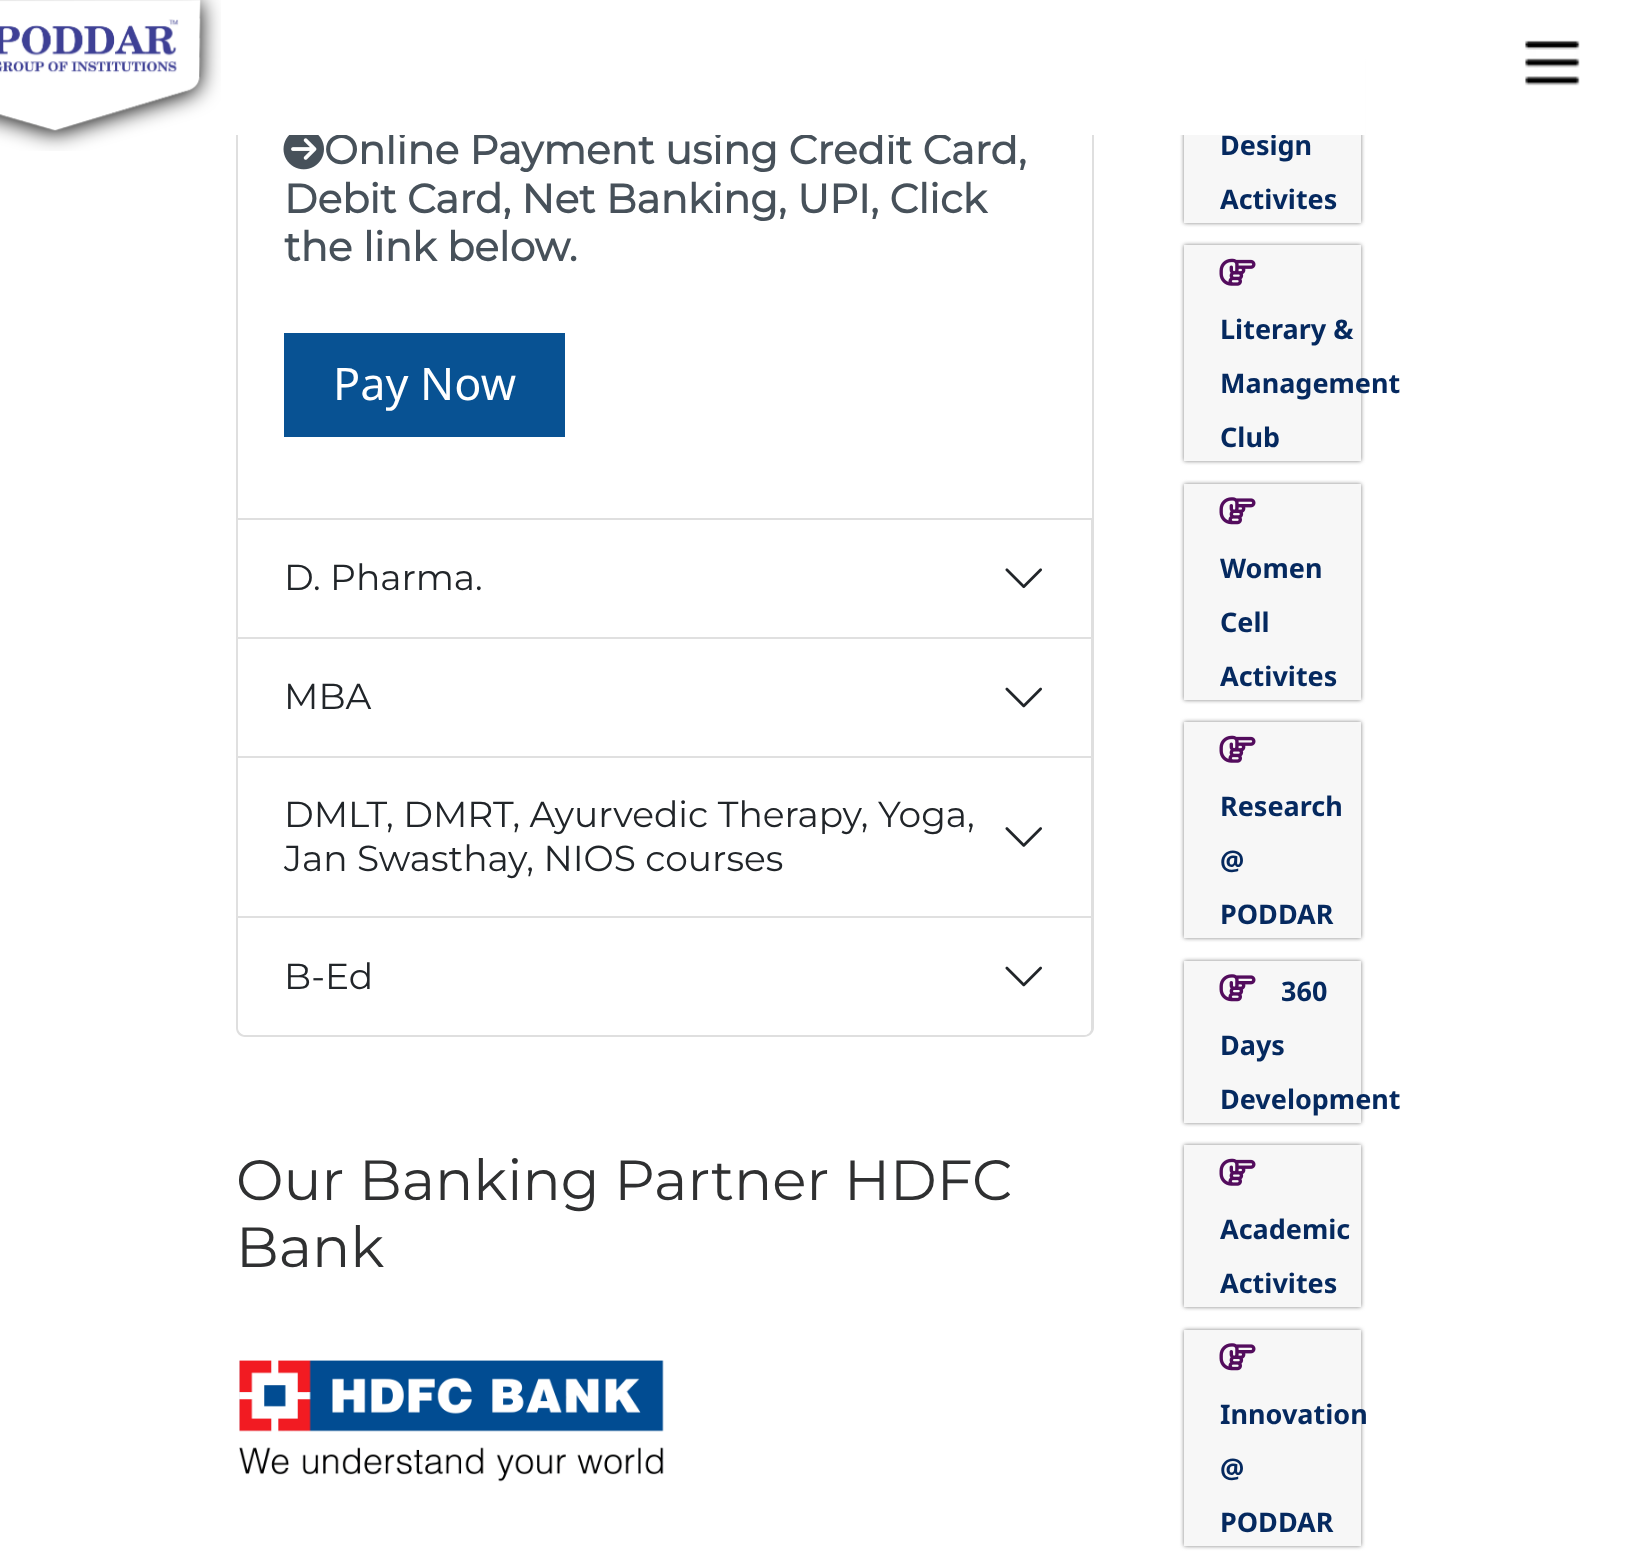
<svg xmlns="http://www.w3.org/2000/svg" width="1632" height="1555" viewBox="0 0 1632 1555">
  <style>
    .t1 { font: bold 40.5px Montserrat; fill: #47515a; }
    .t2 { font: bold 27px Noto Sans; fill: #05295f; }
    .t3 { font: 45px Noto Sans; fill: #fff; }
    .t4 { font: 100 36px Montserrat; fill: #212529; }
    .t5 { font: 100 56.6px Montserrat; fill: #2f3031; }
  </style>
  <rect width="100%" height="100%" fill="#fff"/>
  <rect x="237" y="-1" width="856" height="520" fill="none" stroke="#dfdfdf" stroke-width="2"/>
  <text x="324" y="164" class="t1">Online Payment using Credit Card,</text>
  <rect x="1184" y="61" width="177" height="162" fill="#808080" filter="blur(2px)"/>
  <rect x="1184" y="135" width="177" height="88" fill="#f7f7f7"/>
  <text x="1220" y="155" class="t2">Design</text>
  <rect x="236" y="0" width="1129" height="135" fill="#fff"/>
  <image x="0" y="0" width="221" height="151" href="images/1.png"/>
  <image x="1525" y="40" width="55" height="46" href="images/2.png"/>
  <image x="283" y="135" width="41" height="35" href="images/3.png"/>
  <text x="284" y="213" class="t1">Debit Card, Net Banking, UPI, Click</text>
  <text x="284" y="261" class="t1">the link below.</text>
  <rect x="284" y="333" width="281" height="104" fill="#085293"/>
  <text x="333" y="400" class="t3">Pay Now</text>
  <path d="M1094 520V639L1091 637V520Z" fill="#dfdfdf"/>
  <path d="M1094 639H236L238 637H1091Z" fill="#0000001f"/>
  <path d="M236 639V520H238V637Z" fill="#0000001f"/>
  <text x="284" y="590" class="t4">D. Pharma.</text>
  <image x="1005" y="568" width="37" height="21" href="images/4.png"/>
  <path d="M1094 639V758L1091 756V639Z" fill="#dfdfdf"/>
  <path d="M1094 758H236L238 756H1091Z" fill="#0000001f"/>
  <path d="M236 758V639H238V756Z" fill="#0000001f"/>
  <text x="284" y="709" class="t4">MBA</text>
  <image x="1005" y="687" width="37" height="21" href="images/5.png"/>
  <path d="M1094 758V918L1091 916V758Z" fill="#dfdfdf"/>
  <path d="M1094 918H236L238 916H1091Z" fill="#0000001f"/>
  <path d="M236 918V758H238V916Z" fill="#0000001f"/>
  <text x="284" y="827" class="t4">DMLT, DMRT, Ayurvedic Therapy, Yoga,</text>
  <image x="1005" y="827" width="37" height="20" href="images/6.png"/>
  <text x="284" y="871" class="t4">Jan Swasthay, NIOS courses</text>
  <path d="M236 918H1094V1028C1094 1033 1089 1037 1084 1037H245C240 1037 236 1033 236 1028ZM238 918H1091V1028C1091 1032 1088 1035 1084 1035H245C242 1035 238 1032 238 1028Z" fill="#dfdfdf" fill-rule="evenodd"/>
  <path d="M239 918H1091V1028C1091 1032 1088 1035 1084 1035H246C242 1035 239 1032 239 1028Z" fill="#fff"/>
  <text x="284" y="989" class="t4">B-Ed</text>
  <image x="1005" y="966" width="37" height="21" href="images/5.png"/>
  <text x="236" y="1200" class="t5">Our Banking Partner HDFC</text>
  <text x="236" y="1267" class="t5">Bank</text>
  <image x="239" y="1360" width="425" height="122" href="images/7.png"/>
  <text x="1220" y="209" class="t2">Activites</text>
  <rect x="1184" y="245" width="177" height="216" fill="#808080" filter="blur(2px)"/>
  <rect x="1184" y="245" width="177" height="216" fill="#f7f7f7"/>
  <image x="1219" y="258" width="37" height="28" href="images/8.png"/>
  <text x="1220" y="339" class="t2">Literary &amp;</text>
  <text x="1220" y="393" class="t2">Management</text>
  <text x="1220" y="447" class="t2">Club</text>
  <rect x="1184" y="484" width="177" height="216" fill="#808080" filter="blur(2px)"/>
  <rect x="1184" y="484" width="177" height="216" fill="#f7f7f7"/>
  <image x="1219" y="497" width="37" height="28" href="images/9.png"/>
  <text x="1220" y="578" class="t2">Women</text>
  <text x="1220" y="632" class="t2">Cell</text>
  <text x="1220" y="686" class="t2">Activites</text>
  <rect x="1184" y="722" width="177" height="216" fill="#808080" filter="blur(2px)"/>
  <rect x="1184" y="722" width="177" height="216" fill="#f7f7f7"/>
  <image x="1219" y="735" width="37" height="28" href="images/8.png"/>
  <text x="1220" y="816" class="t2">Research</text>
  <text x="1220" y="870" class="t2">@</text>
  <text x="1220" y="924" class="t2">PODDAR</text>
  <rect x="1184" y="961" width="177" height="162" fill="#808080" filter="blur(2px)"/>
  <rect x="1184" y="961" width="177" height="162" fill="#f7f7f7"/>
  <image x="1219" y="974" width="37" height="28" href="images/9.png"/>
  <text x="1281" y="1001" class="t2">360</text>
  <text x="1220" y="1055" class="t2">Days</text>
  <text x="1220" y="1109" class="t2">Development</text>
  <rect x="1184" y="1145" width="177" height="162" fill="#808080" filter="blur(2px)"/>
  <rect x="1184" y="1145" width="177" height="162" fill="#f7f7f7"/>
  <image x="1219" y="1158" width="37" height="28" href="images/8.png"/>
  <text x="1220" y="1239" class="t2">Academic</text>
  <text x="1220" y="1293" class="t2">Activites</text>
  <rect x="1184" y="1330" width="177" height="216" fill="#808080" filter="blur(2px)"/>
  <rect x="1184" y="1330" width="177" height="216" fill="#f7f7f7"/>
  <image x="1219" y="1343" width="37" height="28" href="images/9.png"/>
  <text x="1220" y="1424" class="t2">Innovation</text>
  <text x="1220" y="1478" class="t2">@</text>
  <text x="1220" y="1532" class="t2">PODDAR</text>
</svg>
